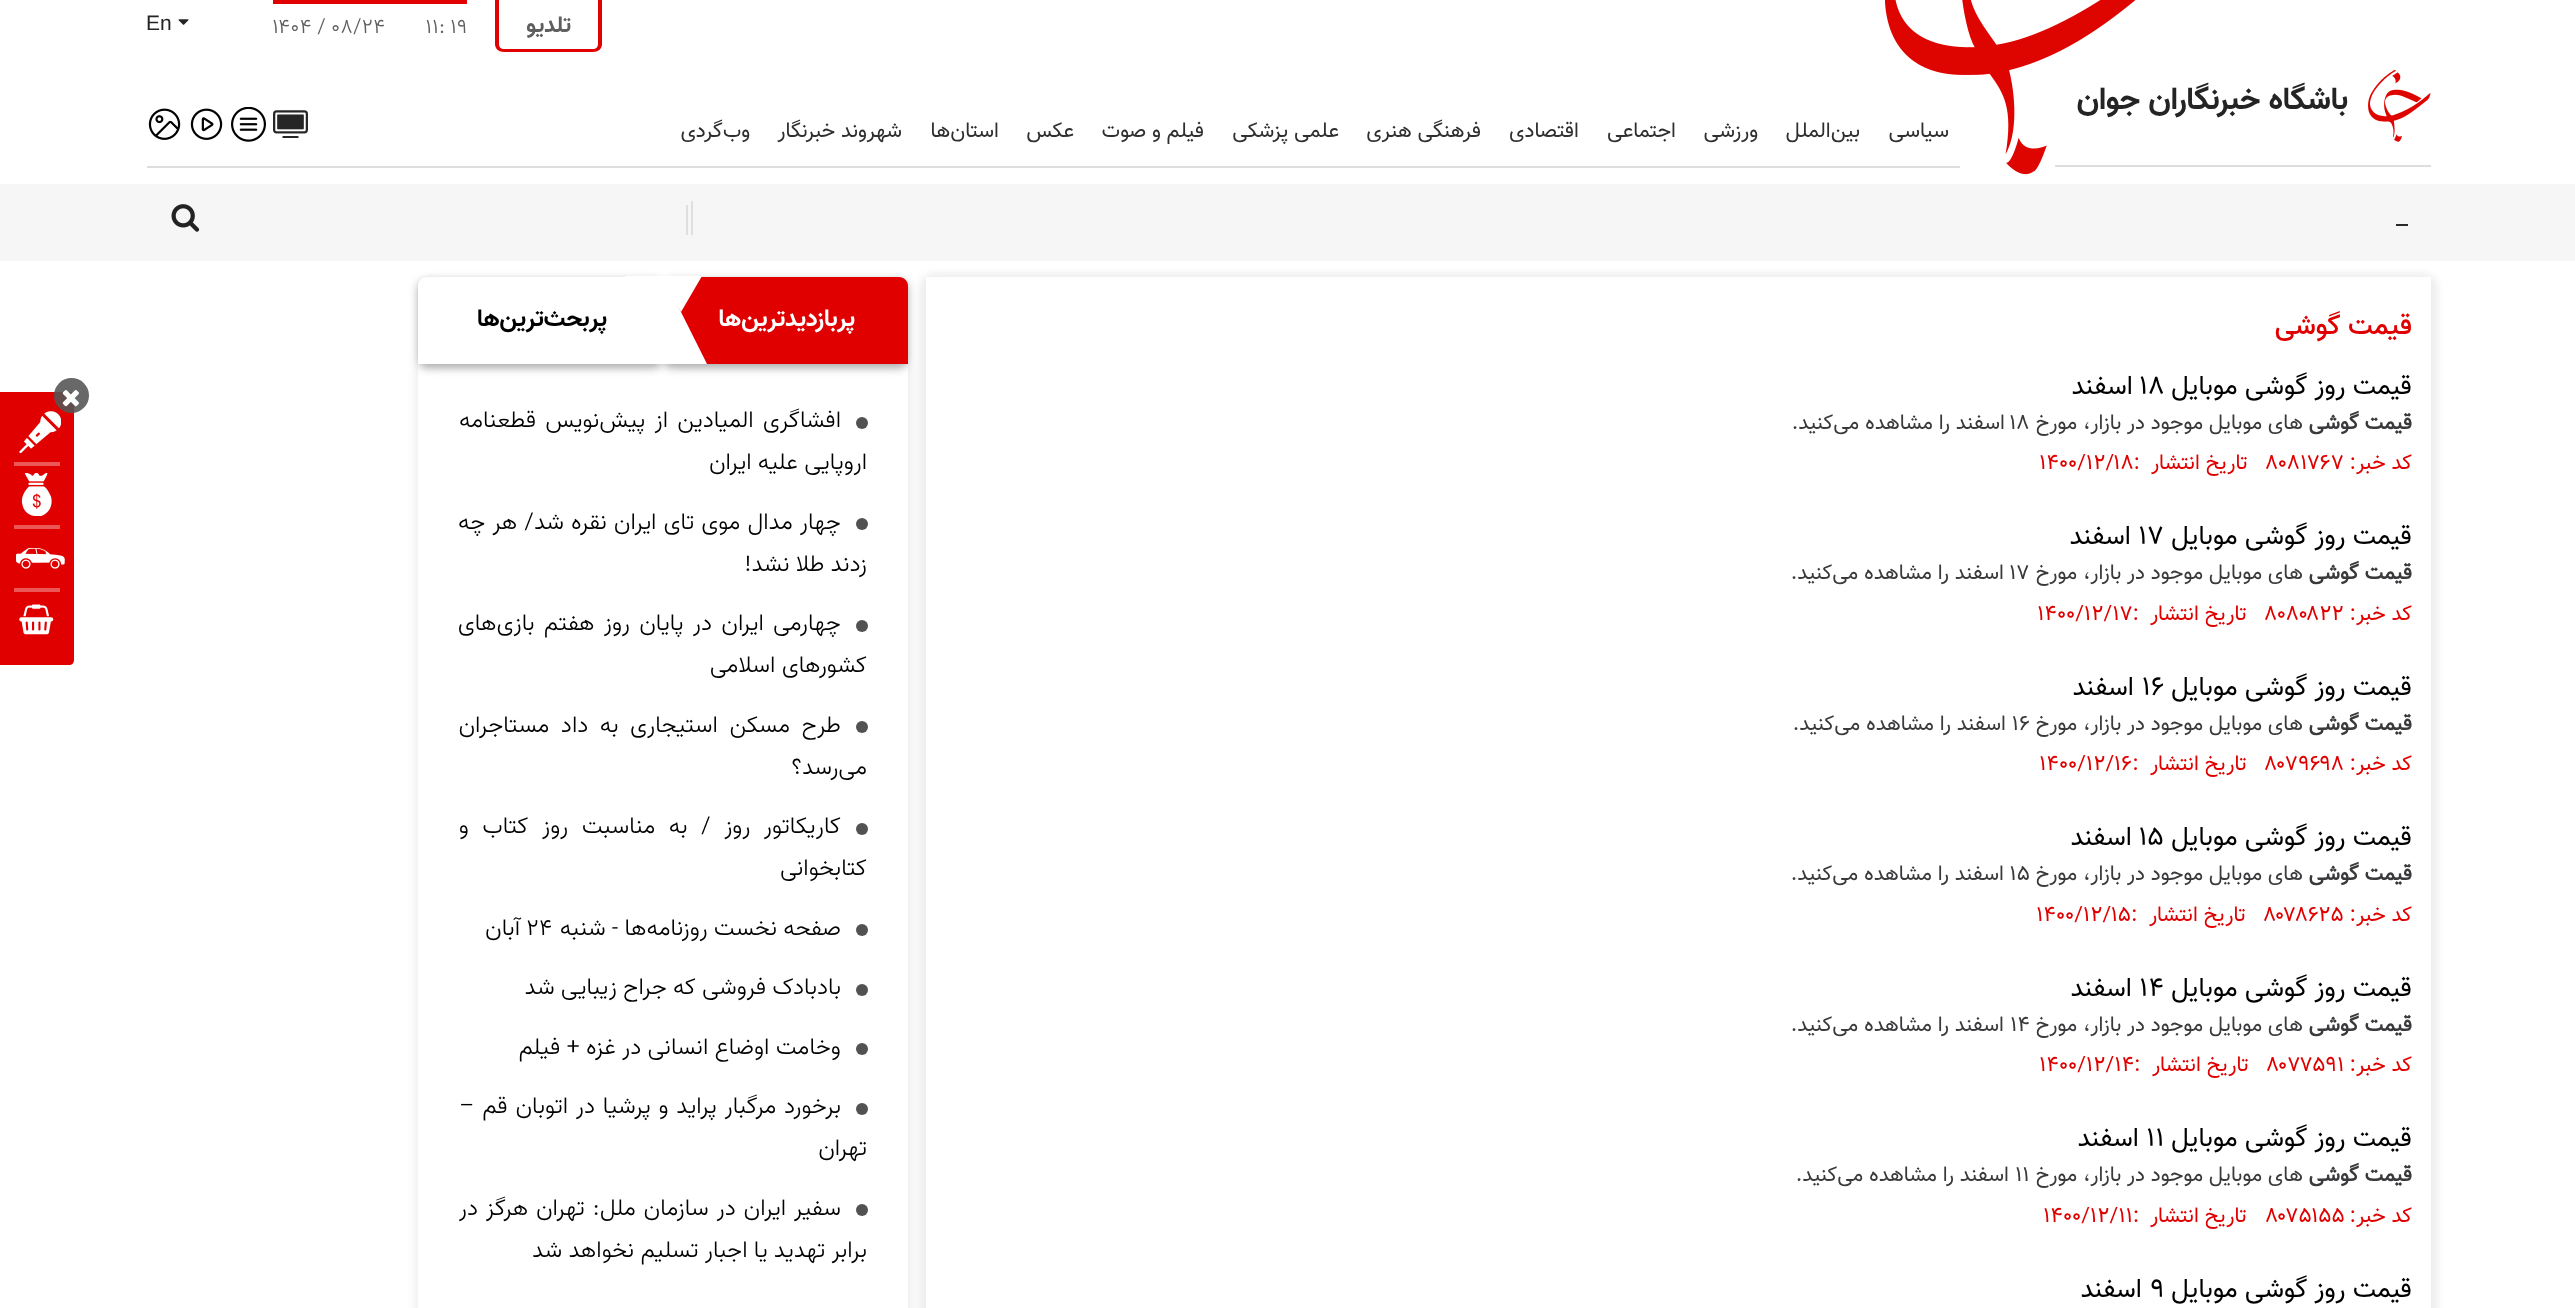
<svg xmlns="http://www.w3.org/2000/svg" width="2575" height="1308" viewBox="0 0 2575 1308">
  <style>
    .t1 { font: bold 31.5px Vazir; direction: rtl; fill: #242424; }
    .t2 { font: bold 23px Vazir; direction: rtl; fill: #5e5e5e; }
    .t3 { font: 300 21px Vazir; fill: #5e5e5e; }
    .t4 { font: 21px Liberation Sans; fill: #242424; }
    .t5 { font: 21px Vazir; direction: rtl; fill: #2f2f2f; }
    .t6 { font: 500 28px Vazir; direction: rtl; fill: #e00000; }
    .t7 { font: 26.25px Vazir; direction: rtl; fill: #000; }
    .t8 { font: 26.25px Vazir; fill: #000; }
    .t9 { font: bold 21px 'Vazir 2'; direction: rtl; fill: #3a3a3d; }
    .t10 { font: 21px Vazir; direction: rtl; fill: #3a3a3d; }
    .t11 { font: 21px Vazir; fill: #3a3a3d; }
    .t12 { font: 21px Vazir; direction: rtl; fill: #e00000; }
    .t13 { font: 21px Vazir; fill: #e00000; }
    .t14 { font: bold 24.5px Vazir; direction: rtl; fill: #fff; }
    .t15 { font: bold 24.5px Vazir; direction: rtl; fill: #000; }
    .t16 { font: 300 23.6px Vazir; direction: rtl; fill: #000; }
    .t17 { font: 300 23.6px Vazir; fill: #000; }
  </style>
  <defs>
    <clipPath id="clip1"><rect x="459" y="399" width="409" height="889"/></clipPath>
  </defs>
  <rect width="100%" height="100%" fill="#fff"/>
  <rect x="2055" y="165" width="376" height="2" fill="#ddd"/>
  <text x="2348" y="109" class="t1">باشگاه خبرنگاران جوان</text>
  <image x="1885" y="0" width="251" height="175" href="images/1.png"/>
  <path d="M495 0H602V44C602 49 598 52 593 52H504C499 52 495 49 495 44ZM499 0H598V44C598 47 596 49 593 49H504C501 49 499 47 499 44Z" fill="#e00200" fill-rule="evenodd"/>
  <text x="571" y="32" class="t2">تلدیو</text>
  <rect x="273" y="0" width="194" height="4" fill="#e10000"/>
  <text x="426" y="33" class="t3">۱۱: ۱۹</text>
  <text x="272" y="33" class="t3">۱۴۰۴ / ۰۸/۲۴</text>
  <image x="178" y="19" width="11" height="6" href="images/2.png"/>
  <text x="146" y="30" class="t4">En</text>
  <image x="2368" y="70" width="63" height="72" href="images/3.png"/>
  <rect x="147" y="166" width="1813" height="2" fill="#ddd"/>
  <text x="1949" y="137" class="t5">سیاسی</text>
  <text x="1860" y="137" class="t5">بین‌الملل</text>
  <text x="1758" y="137" class="t5">ورزشی</text>
  <text x="1676" y="137" class="t5">اجتماعی</text>
  <text x="1579" y="137" class="t5">اقتصادی</text>
  <text x="1481" y="137" class="t5">فرهنگی هنری</text>
  <text x="1339" y="137" class="t5">علمی پزشکی</text>
  <text x="1204" y="137" class="t5">فیلم و صوت</text>
  <text x="1074" y="137" class="t5">عکس</text>
  <text x="999" y="137" class="t5">استان‌ها</text>
  <text x="902" y="137" class="t5">شهروند خبرنگار</text>
  <text x="750" y="137" class="t5">وب‌گردی</text>
  <image x="273" y="110" width="35" height="28" href="images/4.png"/>
  <image x="231" y="107" width="35" height="35" href="images/5.png"/>
  <image x="190" y="108" width="33" height="32" href="images/6.png"/>
  <image x="148" y="108" width="33" height="32" href="images/7.png"/>
  <rect x="0" y="184" width="2575" height="77" fill="#f6f6f6"/>
  <rect x="2396" y="224" width="12" height="2" fill="#292929"/>
  <rect x="691" y="201" width="2" height="34" fill="#dfdfdf"/>
  <rect x="686" y="205" width="2" height="30" fill="#dfdfdf"/>
  <image x="171" y="204" width="29" height="28" href="images/8.png"/>
  <rect x="919" y="273" width="1519" height="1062" rx="16" fill="#eee" filter="blur(3.5px)"/>
  <rect x="926" y="277" width="1505" height="1031" fill="#fff"/>
  <text x="2412" y="334" class="t6">قیمت گوشی</text>
  <text x="2412" y="394" class="t7">قیمت روز گوشی موبایل</text>
  <text x="2140" y="394" class="t8">۱۸</text>
  <text x="2133" y="394" class="t7">اسفند</text>
  <text x="2412" y="429" class="t9">قیمت گوشی</text>
  <text x="2303" y="429" class="t10">‌های موبایل موجود در بازار، مورخ</text>
  <text x="2010" y="429" class="t11">۱۸</text>
  <text x="2005" y="429" class="t10">اسفند را مشاهده می‌کنید.</text>
  <text x="2412" y="469" class="t12">کد خبر:</text>
  <text x="2265" y="469" class="t13">۸۰۸۱۷۶۷</text>
  <text x="2248" y="469" class="t12">تاریخ انتشار</text>
  <text x="2039" y="469" class="t13">۱۴۰۰/۱۲/۱۸:</text>
  <text x="2412" y="544" class="t7">قیمت روز گوشی موبایل</text>
  <text x="2138" y="544" class="t8">۱۷</text>
  <text x="2131" y="544" class="t7">اسفند</text>
  <text x="2412" y="579" class="t9">قیمت گوشی</text>
  <text x="2303" y="579" class="t10">‌های موبایل موجود در بازار، مورخ</text>
  <text x="2009" y="579" class="t11">۱۷</text>
  <text x="2004" y="579" class="t10">اسفند را مشاهده می‌کنید.</text>
  <text x="2412" y="620" class="t12">کد خبر:</text>
  <text x="2264" y="620" class="t13">۸۰۸۰۸۲۲</text>
  <text x="2247" y="620" class="t12">تاریخ انتشار</text>
  <text x="2037" y="620" class="t13">۱۴۰۰/۱۲/۱۷:</text>
  <text x="2412" y="695" class="t7">قیمت روز گوشی موبایل</text>
  <text x="2142" y="695" class="t8">۱۶</text>
  <text x="2134" y="695" class="t7">اسفند</text>
  <text x="2412" y="730" class="t9">قیمت گوشی</text>
  <text x="2303" y="730" class="t10">‌های موبایل موجود در بازار، مورخ</text>
  <text x="2012" y="730" class="t11">۱۶</text>
  <text x="2006" y="730" class="t10">اسفند را مشاهده می‌کنید.</text>
  <text x="2412" y="770" class="t12">کد خبر:</text>
  <text x="2264" y="770" class="t13">۸۰۷۹۶۹۸</text>
  <text x="2247" y="770" class="t12">تاریخ انتشار</text>
  <text x="2039" y="770" class="t13">۱۴۰۰/۱۲/۱۶:</text>
  <text x="2412" y="845" class="t7">قیمت روز گوشی موبایل</text>
  <text x="2139" y="845" class="t8">۱۵</text>
  <text x="2132" y="845" class="t7">اسفند</text>
  <text x="2412" y="880" class="t9">قیمت گوشی</text>
  <text x="2303" y="880" class="t10">‌های موبایل موجود در بازار، مورخ</text>
  <text x="2010" y="880" class="t11">۱۵</text>
  <text x="2004" y="880" class="t10">اسفند را مشاهده می‌کنید.</text>
  <text x="2412" y="921" class="t12">کد خبر:</text>
  <text x="2263" y="921" class="t13">۸۰۷۸۶۲۵</text>
  <text x="2246" y="921" class="t12">تاریخ انتشار</text>
  <text x="2036" y="921" class="t13">۱۴۰۰/۱۲/۱۵:</text>
  <text x="2412" y="996" class="t7">قیمت روز گوشی موبایل</text>
  <text x="2139" y="996" class="t8">۱۴</text>
  <text x="2132" y="996" class="t7">اسفند</text>
  <text x="2412" y="1031" class="t9">قیمت گوشی</text>
  <text x="2303" y="1031" class="t10">‌های موبایل موجود در بازار، مورخ</text>
  <text x="2010" y="1031" class="t11">۱۴</text>
  <text x="2004" y="1031" class="t10">اسفند را مشاهده می‌کنید.</text>
  <text x="2412" y="1071" class="t12">کد خبر:</text>
  <text x="2266" y="1071" class="t13">۸۰۷۷۵۹۱</text>
  <text x="2249" y="1071" class="t12">تاریخ انتشار</text>
  <text x="2039" y="1071" class="t13">۱۴۰۰/۱۲/۱۴:</text>
  <text x="2412" y="1146" class="t7">قیمت روز گوشی موبایل</text>
  <text x="2146" y="1146" class="t8">۱۱</text>
  <text x="2139" y="1146" class="t7">اسفند</text>
  <text x="2412" y="1181" class="t9">قیمت گوشی</text>
  <text x="2303" y="1181" class="t10">‌های موبایل موجود در بازار، مورخ</text>
  <text x="2015" y="1181" class="t11">۱۱</text>
  <text x="2009" y="1181" class="t10">اسفند را مشاهده می‌کنید.</text>
  <text x="2412" y="1222" class="t12">کد خبر:</text>
  <text x="2265" y="1222" class="t13">۸۰۷۵۱۵۵</text>
  <text x="2247" y="1222" class="t12">تاریخ انتشار</text>
  <text x="2043" y="1222" class="t13">۱۴۰۰/۱۲/۱۱:</text>
  <text x="2412" y="1297" class="t7">قیمت روز گوشی موبایل</text>
  <text x="2150" y="1297" class="t8">۹</text>
  <text x="2142" y="1297" class="t7">اسفند</text>
  <rect x="415" y="364" width="497" height="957" fill="#eee" filter="blur(4.5px)"/>
  <rect x="418" y="364" width="490" height="944" fill="#fff"/>
  <rect x="663" y="280" width="245" height="88" rx="9" fill="#aaa" filter="blur(4.5px)"/>
  <path d="M663 277H899C904 277 908 281 908 286V364H663Z" fill="#e00000"/>
  <rect x="418" y="280" width="245" height="88" rx="9" fill="#aaa" filter="blur(4.5px)"/>
  <path d="M427 277H663V364H418V286C418 281 422 277 427 277Z" fill="#fff"/>
  <path d="M660 276H702L681 312Z" fill="#fff"/>
  <text x="855" y="326" class="t14">پربازدیدترین‌ها</text>
  <path d="M625 276H667L646 312Z" fill="#fff"/>
  <path d="M707 364H620L663 276Z" fill="#fff"/>
  <text x="607" y="326" class="t15">پربحث‌ترین‌ها</text>
  <circle cx="862" cy="423" r="6" fill="#525252"/>
  <text x="841" y="427" word-spacing="3" class="t16">افشاگری المیادین از پیش‌نویس قطعنامه</text>
  <text x="867" y="469" class="t16">اروپایی علیه ایران</text>
  <circle cx="862" cy="524" r="6" fill="#525252"/>
  <text x="841" y="529" word-spacing="0.75" class="t16">چهار مدال موی تای ایران نقره شد/ هر چه</text>
  <text x="867" y="571" class="t16">زدند طلا نشد!</text>
  <circle cx="862" cy="626" r="6" fill="#525252"/>
  <text x="841" y="630" word-spacing="3" class="t16">چهارمی ایران در پایان روز هفتم بازی‌های</text>
  <text x="867" y="672" class="t16">کشور‌های اسلامی</text>
  <circle cx="862" cy="727" r="6" fill="#525252"/>
  <text x="841" y="732" word-spacing="5.25" class="t16">طرح مسکن استیجاری به داد مستاجران</text>
  <text x="867" y="774" class="t16">می‌رسد؟</text>
  <circle cx="862" cy="829" r="6" fill="#525252"/>
  <text x="841" y="833" word-spacing="7.25" class="t16">کاریکاتور روز / به مناسبت روز کتاب و</text>
  <text x="867" y="875" class="t16">کتابخوانی</text>
  <circle cx="862" cy="930" r="6" fill="#525252"/>
  <text x="841" y="935" class="t16">صفحه نخست روزنامه‌ها - شنبه</text>
  <text x="526" y="935" class="t17">۲۴</text>
  <text x="520" y="935" class="t16">آبان</text>
  <circle cx="862" cy="990" r="6" fill="#525252"/>
  <text x="841" y="994" class="t16">بادبادک فروشی که جراح زیبایی شد</text>
  <circle cx="862" cy="1049" r="6" fill="#525252"/>
  <text x="841" y="1054" class="t16">وخامت اوضاع انسانی در غزه + فیلم</text>
  <circle cx="862" cy="1109" r="6" fill="#525252"/>
  <text x="841" y="1113" word-spacing="1.5" class="t16">برخورد مرگبار پراید و پرشیا در اتوبان قم –</text>
  <text x="867" y="1155" class="t16">تهران</text>
  <circle cx="862" cy="1210" r="6" fill="#525252"/>
  <g clip-path="url(#clip1)">
    <text x="841" y="1215" word-spacing="1.5" class="t16">سفیر ایران در سازمان ملل: تهران هرگز در</text>
  </g>
  <text x="867" y="1257" class="t16">برابر تهدید یا اجبار تسلیم نخواهد شد</text>
  <path d="M0 392H69C72 392 74 394 74 397V660C74 663 72 665 69 665H0Z" fill="#e10000"/>
  <circle cx="71.5" cy="395.5" r="17.5" fill="#555555e3"/>
  <image x="62" y="390" width="17" height="17" href="images/9.png"/>
  <rect x="14" y="462" width="46" height="4" fill="#eb5757"/>
  <image x="19" y="411" width="42" height="42" href="images/10.png"/>
  <rect x="14" y="525" width="46" height="4" fill="#eb5757"/>
  <image x="21" y="473" width="31" height="43" href="images/11.png"/>
  <rect x="14" y="588" width="46" height="4" fill="#eb5757"/>
  <image x="16" y="548" width="49" height="21" href="images/12.png"/>
  <image x="19" y="604" width="35" height="31" href="images/13.png"/>
</svg>
